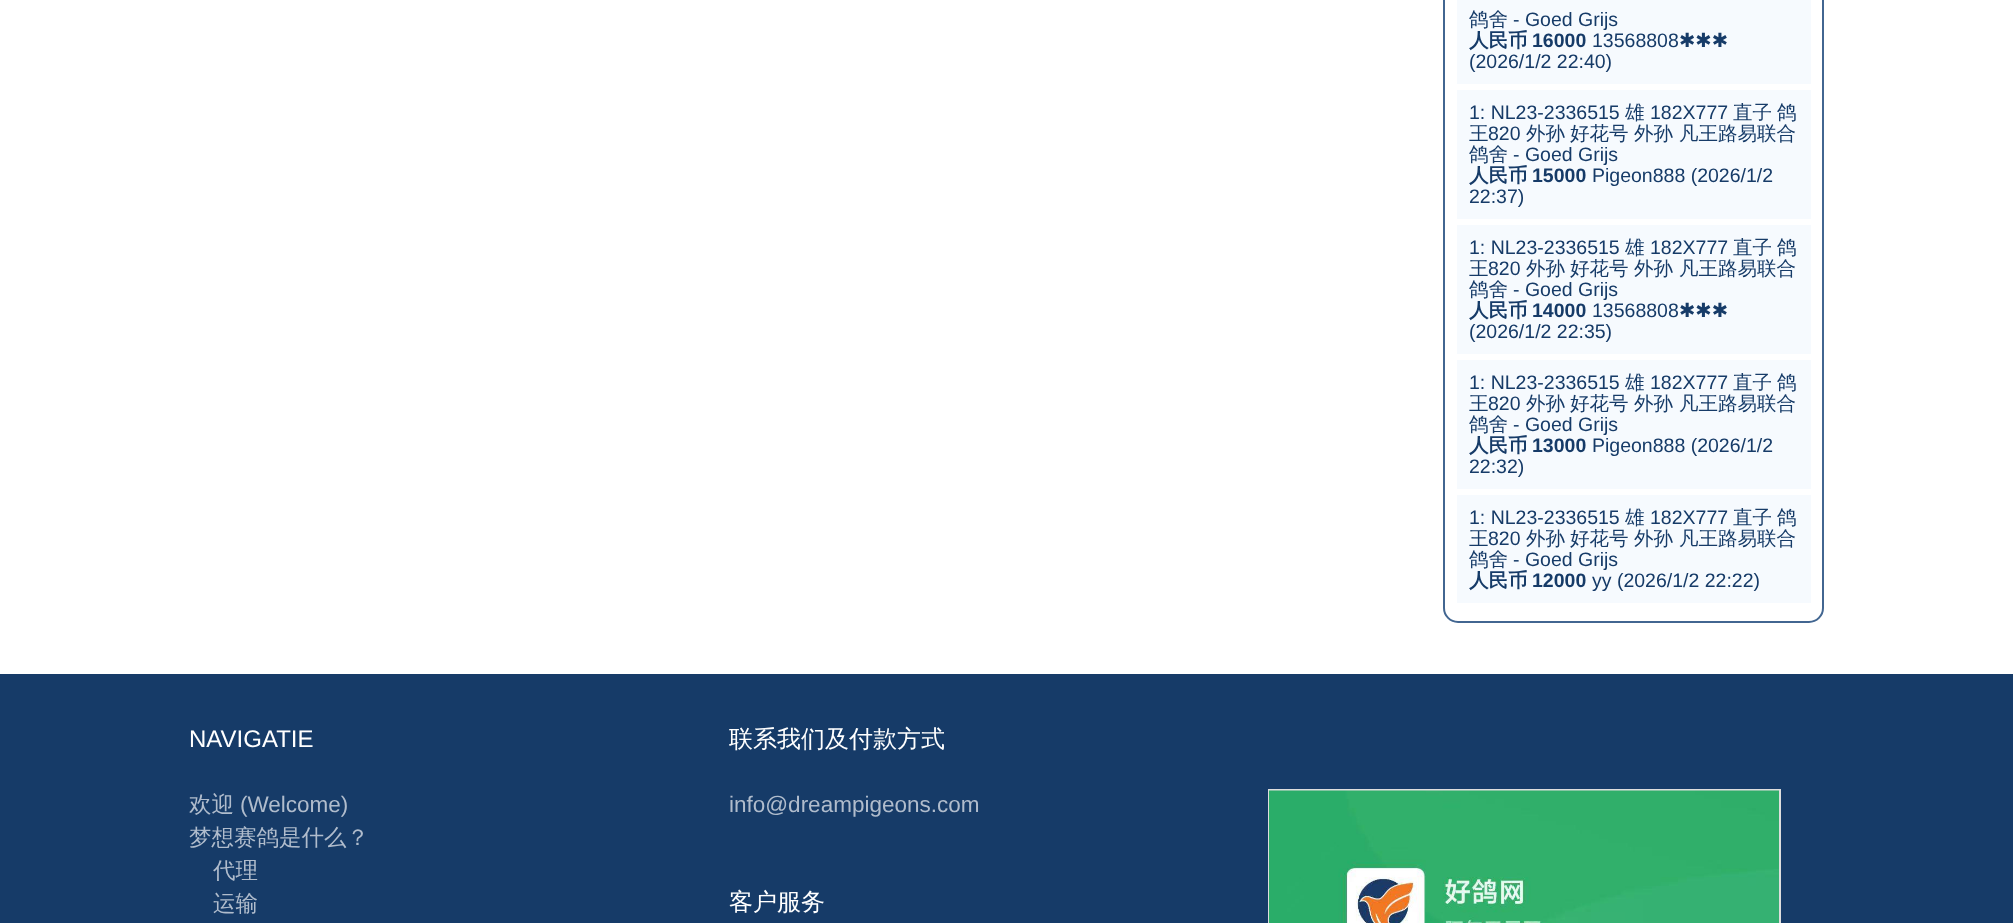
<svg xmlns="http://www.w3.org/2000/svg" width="2013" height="923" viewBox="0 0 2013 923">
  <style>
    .t1 { font: 500 19.5px WenQuanYi Zen Hei; fill: #163b68; }
    .t2 { font: 19.5px Liberation Sans; fill: #163b68; }
    .t3 { font: bold 19.5px WenQuanYi Zen Hei; fill: #163b68; }
    .t4 { font: bold 19.5px Liberation Sans; fill: #163b68; }
    .t5 { font: 19.5px DejaVu Sans; fill: #163b68; }
    .t6 { font: 24px Liberation Sans; fill: #fff; }
    .t7 { font: 500 22.5px WenQuanYi Zen Hei; fill: #b0bccc; }
    .t8 { font: 22.5px Liberation Sans; fill: #b0bccc; }
    .t9 { font: 500 24px WenQuanYi Zen Hei; fill: #fff; }
  </style>
  <rect width="100%" height="100%" fill="#fff"/>
  <rect x="1444" y="-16" width="379" height="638" rx="14" fill="none" stroke="#426691" stroke-width="2"/>
  <rect x="1457" y="0" width="354" height="84" fill="#f6fafe"/>
  <text x="1469" y="26" class="t1">鸽舍</text>
  <text x="1513" y="26" class="t2">- Goed Grijs</text>
  <text x="1469" y="47" class="t3">人民币</text>
  <text x="1532" y="47" class="t4">16000</text>
  <text x="1592" y="47" class="t2">13568808</text>
  <text x="1679" y="47" class="t5">✱✱✱</text>
  <text x="1469" y="68" class="t2">(2026/1/2 22:40)</text>
  <rect x="1457" y="90" width="354" height="129" fill="#f6fafe"/>
  <text x="1469" y="119" class="t2">1: NL23-2336515</text>
  <text x="1625" y="119" class="t1">雄</text>
  <text x="1650" y="119" class="t2">182X777</text>
  <text x="1733" y="119" class="t1">直子</text>
  <text x="1777" y="119" class="t1">鸽</text>
  <text x="1469" y="140" class="t1">王</text>
  <text x="1488" y="140" class="t2">820</text>
  <text x="1526" y="140" class="t1">外孙</text>
  <text x="1570" y="140" class="t1">好花号</text>
  <text x="1634" y="140" class="t1">外孙</text>
  <text x="1679" y="140" class="t1">凡王路易联合</text>
  <text x="1469" y="161" class="t1">鸽舍</text>
  <text x="1513" y="161" class="t2">- Goed Grijs</text>
  <text x="1469" y="182" class="t3">人民币</text>
  <text x="1532" y="182" class="t4">15000</text>
  <text x="1592" y="182" class="t2">Pigeon888 (2026/1/2</text>
  <text x="1469" y="203" class="t2">22:37)</text>
  <rect x="1457" y="225" width="354" height="129" fill="#f6fafe"/>
  <text x="1469" y="254" class="t2">1: NL23-2336515</text>
  <text x="1625" y="254" class="t1">雄</text>
  <text x="1650" y="254" class="t2">182X777</text>
  <text x="1733" y="254" class="t1">直子</text>
  <text x="1777" y="254" class="t1">鸽</text>
  <text x="1469" y="275" class="t1">王</text>
  <text x="1488" y="275" class="t2">820</text>
  <text x="1526" y="275" class="t1">外孙</text>
  <text x="1570" y="275" class="t1">好花号</text>
  <text x="1634" y="275" class="t1">外孙</text>
  <text x="1679" y="275" class="t1">凡王路易联合</text>
  <text x="1469" y="296" class="t1">鸽舍</text>
  <text x="1513" y="296" class="t2">- Goed Grijs</text>
  <text x="1469" y="317" class="t3">人民币</text>
  <text x="1532" y="317" class="t4">14000</text>
  <text x="1592" y="317" class="t2">13568808</text>
  <text x="1679" y="317" class="t5">✱✱✱</text>
  <text x="1469" y="338" class="t2">(2026/1/2 22:35)</text>
  <rect x="1457" y="360" width="354" height="129" fill="#f6fafe"/>
  <text x="1469" y="389" class="t2">1: NL23-2336515</text>
  <text x="1625" y="389" class="t1">雄</text>
  <text x="1650" y="389" class="t2">182X777</text>
  <text x="1733" y="389" class="t1">直子</text>
  <text x="1777" y="389" class="t1">鸽</text>
  <text x="1469" y="410" class="t1">王</text>
  <text x="1488" y="410" class="t2">820</text>
  <text x="1526" y="410" class="t1">外孙</text>
  <text x="1570" y="410" class="t1">好花号</text>
  <text x="1634" y="410" class="t1">外孙</text>
  <text x="1679" y="410" class="t1">凡王路易联合</text>
  <text x="1469" y="431" class="t1">鸽舍</text>
  <text x="1513" y="431" class="t2">- Goed Grijs</text>
  <text x="1469" y="452" class="t3">人民币</text>
  <text x="1532" y="452" class="t4">13000</text>
  <text x="1592" y="452" class="t2">Pigeon888 (2026/1/2</text>
  <text x="1469" y="473" class="t2">22:32)</text>
  <rect x="1457" y="495" width="354" height="108" fill="#f6fafe"/>
  <text x="1469" y="524" class="t2">1: NL23-2336515</text>
  <text x="1625" y="524" class="t1">雄</text>
  <text x="1650" y="524" class="t2">182X777</text>
  <text x="1733" y="524" class="t1">直子</text>
  <text x="1777" y="524" class="t1">鸽</text>
  <text x="1469" y="545" class="t1">王</text>
  <text x="1488" y="545" class="t2">820</text>
  <text x="1526" y="545" class="t1">外孙</text>
  <text x="1570" y="545" class="t1">好花号</text>
  <text x="1634" y="545" class="t1">外孙</text>
  <text x="1679" y="545" class="t1">凡王路易联合</text>
  <text x="1469" y="566" class="t1">鸽舍</text>
  <text x="1513" y="566" class="t2">- Goed Grijs</text>
  <text x="1469" y="587" class="t3">人民币</text>
  <text x="1532" y="587" class="t4">12000</text>
  <text x="1592" y="587" class="t2">yy (2026/1/2 22:22)</text>
  <rect x="0" y="674" width="2013" height="249" fill="#163b68"/>
  <text x="189" y="747" class="t6">NAVIGATIE</text>
  <text x="189" y="812" class="t7">欢迎</text>
  <text x="240" y="812" class="t8">(Welcome)</text>
  <text x="189" y="845" class="t7">梦想赛鸽是什么？</text>
  <text x="213" y="878" class="t7">代理</text>
  <text x="213" y="911" class="t7">运输</text>
  <text x="729" y="747" class="t9">联系我们及付款方式</text>
  <text x="729" y="812" class="t8">info@dreampigeons.com</text>
  <text x="729" y="910" class="t9">客户服务</text>
  <rect x="1269" y="790" width="511" height="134" fill="none" stroke="#ddd" stroke-width="2"/>
  <image x="1269" y="790" width="510" height="133" href="images/1.png"/>
</svg>
